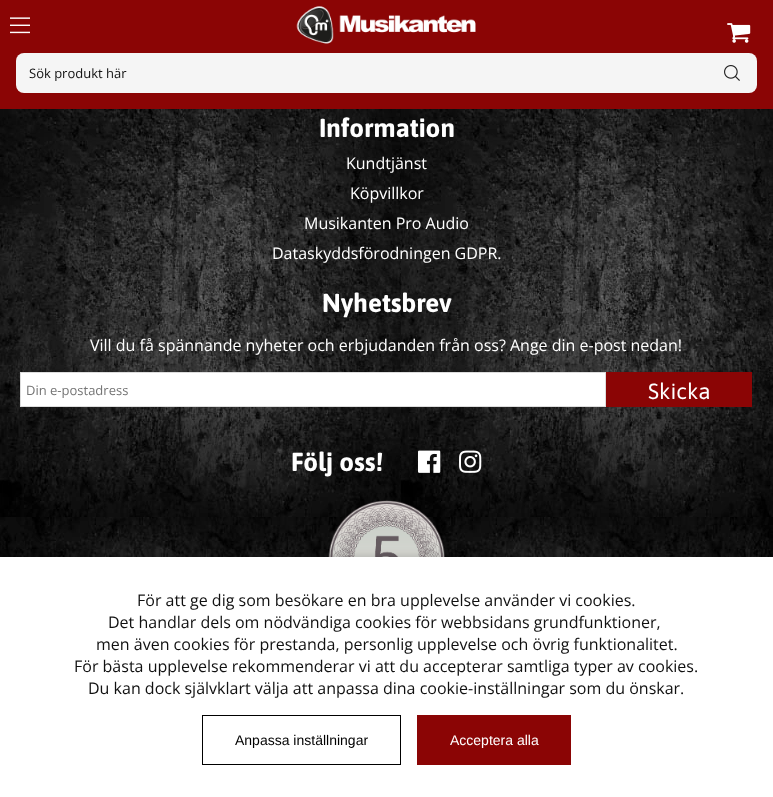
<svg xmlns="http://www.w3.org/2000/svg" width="773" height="797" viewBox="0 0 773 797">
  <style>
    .t1 { font: 13px Open Sans; fill: #111; }
    .t2 { font: bold 26px Asap; fill: #fff; }
    .t3 { font: 16px Open Sans; fill: #fff; }
    .t4 { font: 13px Open Sans; fill: #757575; }
    .t5 { font: 22px Asap; fill: #fff; }
    .t6 { font: 16px Open Sans; fill: #111; }
    .t7 { font: 14px Liberation Sans; fill: #000; }
    .t8 { font: 14px Liberation Sans; fill: #fff; }
  </style>
  <rect width="100%" height="100%" fill="#fff"/>
  <rect x="0" y="0" width="773" height="109" fill="#8b0505"/>
  <image x="10" y="17" width="20" height="17" href="images/1.png"/>
  <image x="296" y="6" width="180" height="38" href="images/2.png"/>
  <image x="727" y="23" width="24" height="20" href="images/3.png"/>
  <rect x="16" y="53" width="741" height="40" rx="8" fill="#f5f5f5"/>
  <text x="29" y="78" class="t1">Sök produkt här</text>
  <image x="724" y="65" width="16" height="16" href="images/4.png"/>
  <image x="0" y="109" width="773" height="448" href="images/5.png"/>
  <text x="319" y="137" class="t2">Information</text>
  <text x="346" y="169" class="t3">Kundtjänst</text>
  <text x="350" y="199" class="t3">Köpvillkor</text>
  <text x="304" y="229" class="t3">Musikanten Pro Audio</text>
  <text x="272" y="259" class="t3">Dataskyddsförodningen GDPR.</text>
  <text x="322" y="312" class="t2">Nyhetsbrev</text>
  <text x="90" y="351" class="t3">Vill du få spännande nyheter och erbjudanden från oss? Ange din e-post nedan!</text>
  <rect x="20.5" y="372.5" width="585" height="34" fill="#fff" stroke="#ddd"/>
  <text x="26" y="395" class="t4">Din e-postadress</text>
  <rect x="606" y="372" width="146" height="35" fill="#8b0505"/>
  <text x="648" y="399" class="t5">Skicka</text>
  <text x="291" y="471" class="t2">Följ oss!</text>
  <image x="418" y="450" width="23" height="23" href="images/6.png"/>
  <image x="459" y="450" width="23" height="23" href="images/7.png"/>
  <image x="328" y="500" width="117" height="57" href="images/8.png"/>
  <rect x="0" y="557" width="773" height="240" fill="#00000033" filter="blur(5px)"/>
  <rect x="0" y="557" width="773" height="240" fill="#fff"/>
  <text x="137" y="606" class="t6">För att ge dig som besökare en bra upplevelse använder vi cookies.</text>
  <text x="108" y="628" class="t6">Det handlar dels om nödvändiga cookies för webbsidans grundfunktioner,</text>
  <text x="96" y="650" class="t6">men även cookies för prestanda, personlig upplevelse och övrig funktionalitet.</text>
  <text x="74" y="672" class="t6">För bästa upplevelse rekommenderar vi att du accepterar samtliga typer av cookies.</text>
  <text x="88" y="694" class="t6">Du kan dock självklart välja att anpassa dina cookie-inställningar som du önskar.</text>
  <rect x="202.5" y="715.5" width="198" height="49" fill="none" stroke="#000"/>
  <text x="235" y="745" class="t7">Anpassa inställningar</text>
  <rect x="417" y="715" width="154" height="50" fill="#8b0505"/>
  <text x="450" y="745" class="t8">Acceptera alla</text>
</svg>
